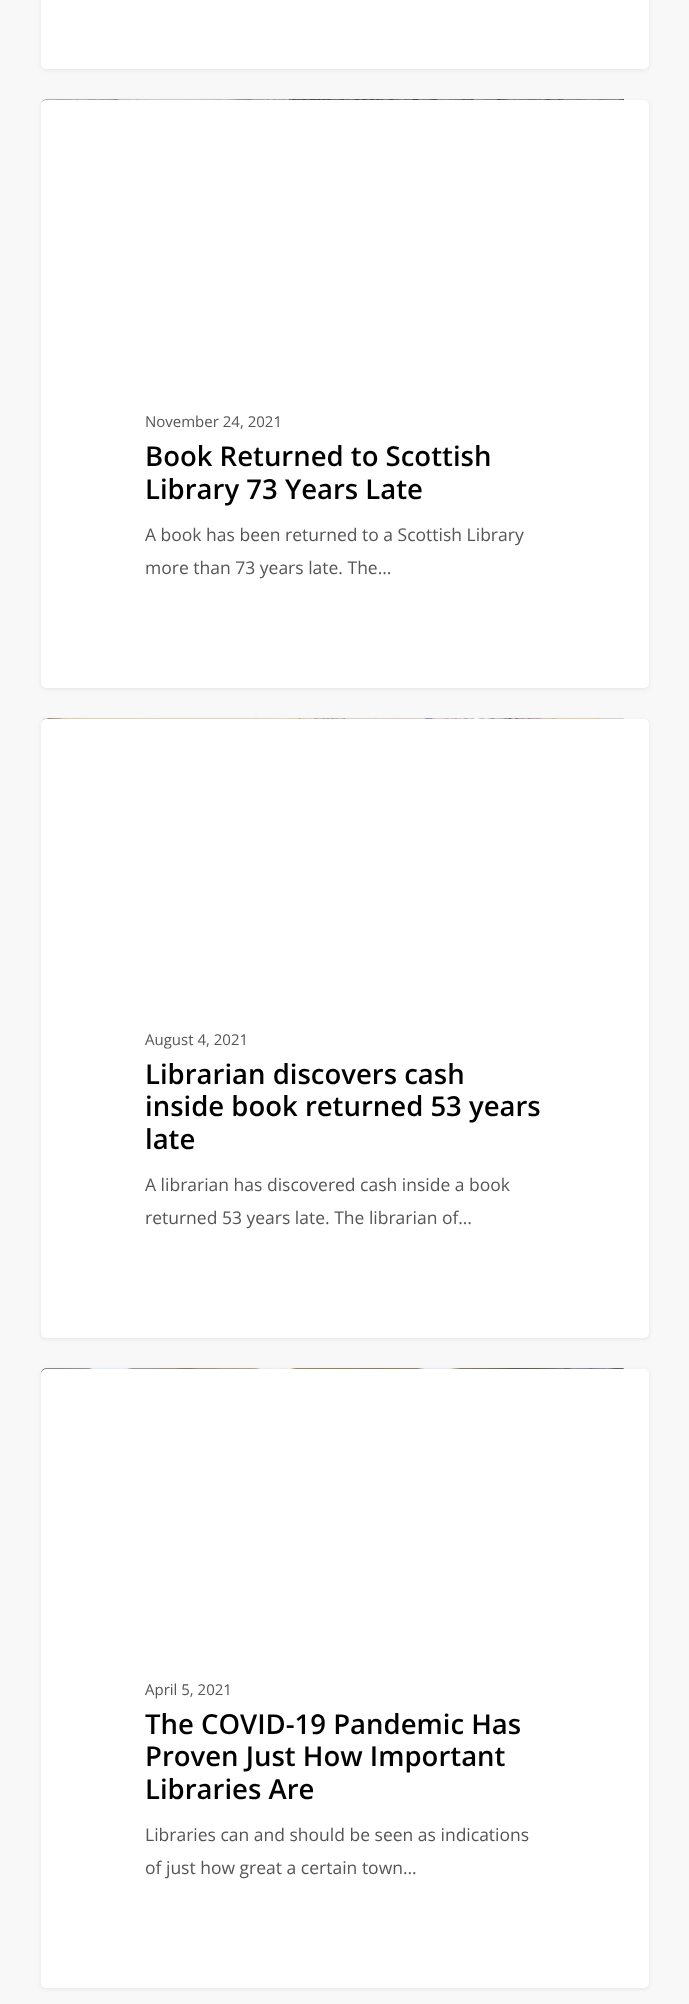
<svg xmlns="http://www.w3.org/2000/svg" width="689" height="2004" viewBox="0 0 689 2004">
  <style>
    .t1 { font: 15px Open Sans; fill: #555; }
    .t2 { font: 600 27.5px Open Sans; fill: #000; }
    .t3 { font: 17.5px Open Sans; fill: #555; }
  </style>
  <rect width="100%" height="100%" fill="#f8f8f8"/>
  <rect x="41" y="-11" width="608" height="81" rx="5" fill="#00000014" filter="blur(2px)"/>
  <rect x="41" y="-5" width="608" height="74" rx="5" fill="#fff"/>
  <rect x="41" y="101" width="608" height="588" rx="5" fill="#00000014" filter="blur(2px)"/>
  <image x="41" y="99" width="583" height="6" href="images/1.png"/>
  <rect x="41" y="100" width="608" height="588" rx="5" fill="#fff"/>
  <text x="145" y="427" class="t1">November 24, 2021</text>
  <text x="145" y="466" class="t2">Book Returned to Scottish</text>
  <text x="145" y="499" class="t2">Library 73 Years Late</text>
  <text x="145" y="541" class="t3">A book has been returned to a Scottish Library</text>
  <text x="145" y="574" class="t3">more than 73 years late. The…</text>
  <rect x="41" y="720" width="608" height="619" rx="5" fill="#00000014" filter="blur(2px)"/>
  <image x="41" y="718" width="583" height="6" href="images/2.png"/>
  <rect x="41" y="719" width="608" height="619" rx="5" fill="#fff"/>
  <text x="145" y="1045" class="t1">August 4, 2021</text>
  <text x="145" y="1084" class="t2">Librarian discovers cash</text>
  <text x="145" y="1116" class="t2">inside book returned 53 years</text>
  <text x="145" y="1149" class="t2">late</text>
  <text x="145" y="1191" class="t3">A librarian has discovered cash inside a book</text>
  <text x="145" y="1224" class="t3">returned 53 years late. The librarian of…</text>
  <rect x="41" y="1370" width="608" height="619" rx="5" fill="#00000014" filter="blur(2px)"/>
  <image x="41" y="1368" width="583" height="6" href="images/3.png"/>
  <rect x="41" y="1369" width="608" height="619" rx="5" fill="#fff"/>
  <text x="145" y="1695" class="t1">April 5, 2021</text>
  <text x="145" y="1734" class="t2">The COVID-19 Pandemic Has</text>
  <text x="145" y="1766" class="t2">Proven Just How Important</text>
  <text x="145" y="1799" class="t2">Libraries Are</text>
  <text x="145" y="1841" class="t3">Libraries can and should be seen as indications</text>
  <text x="145" y="1874" class="t3">of just how great a certain town…</text>
</svg>
